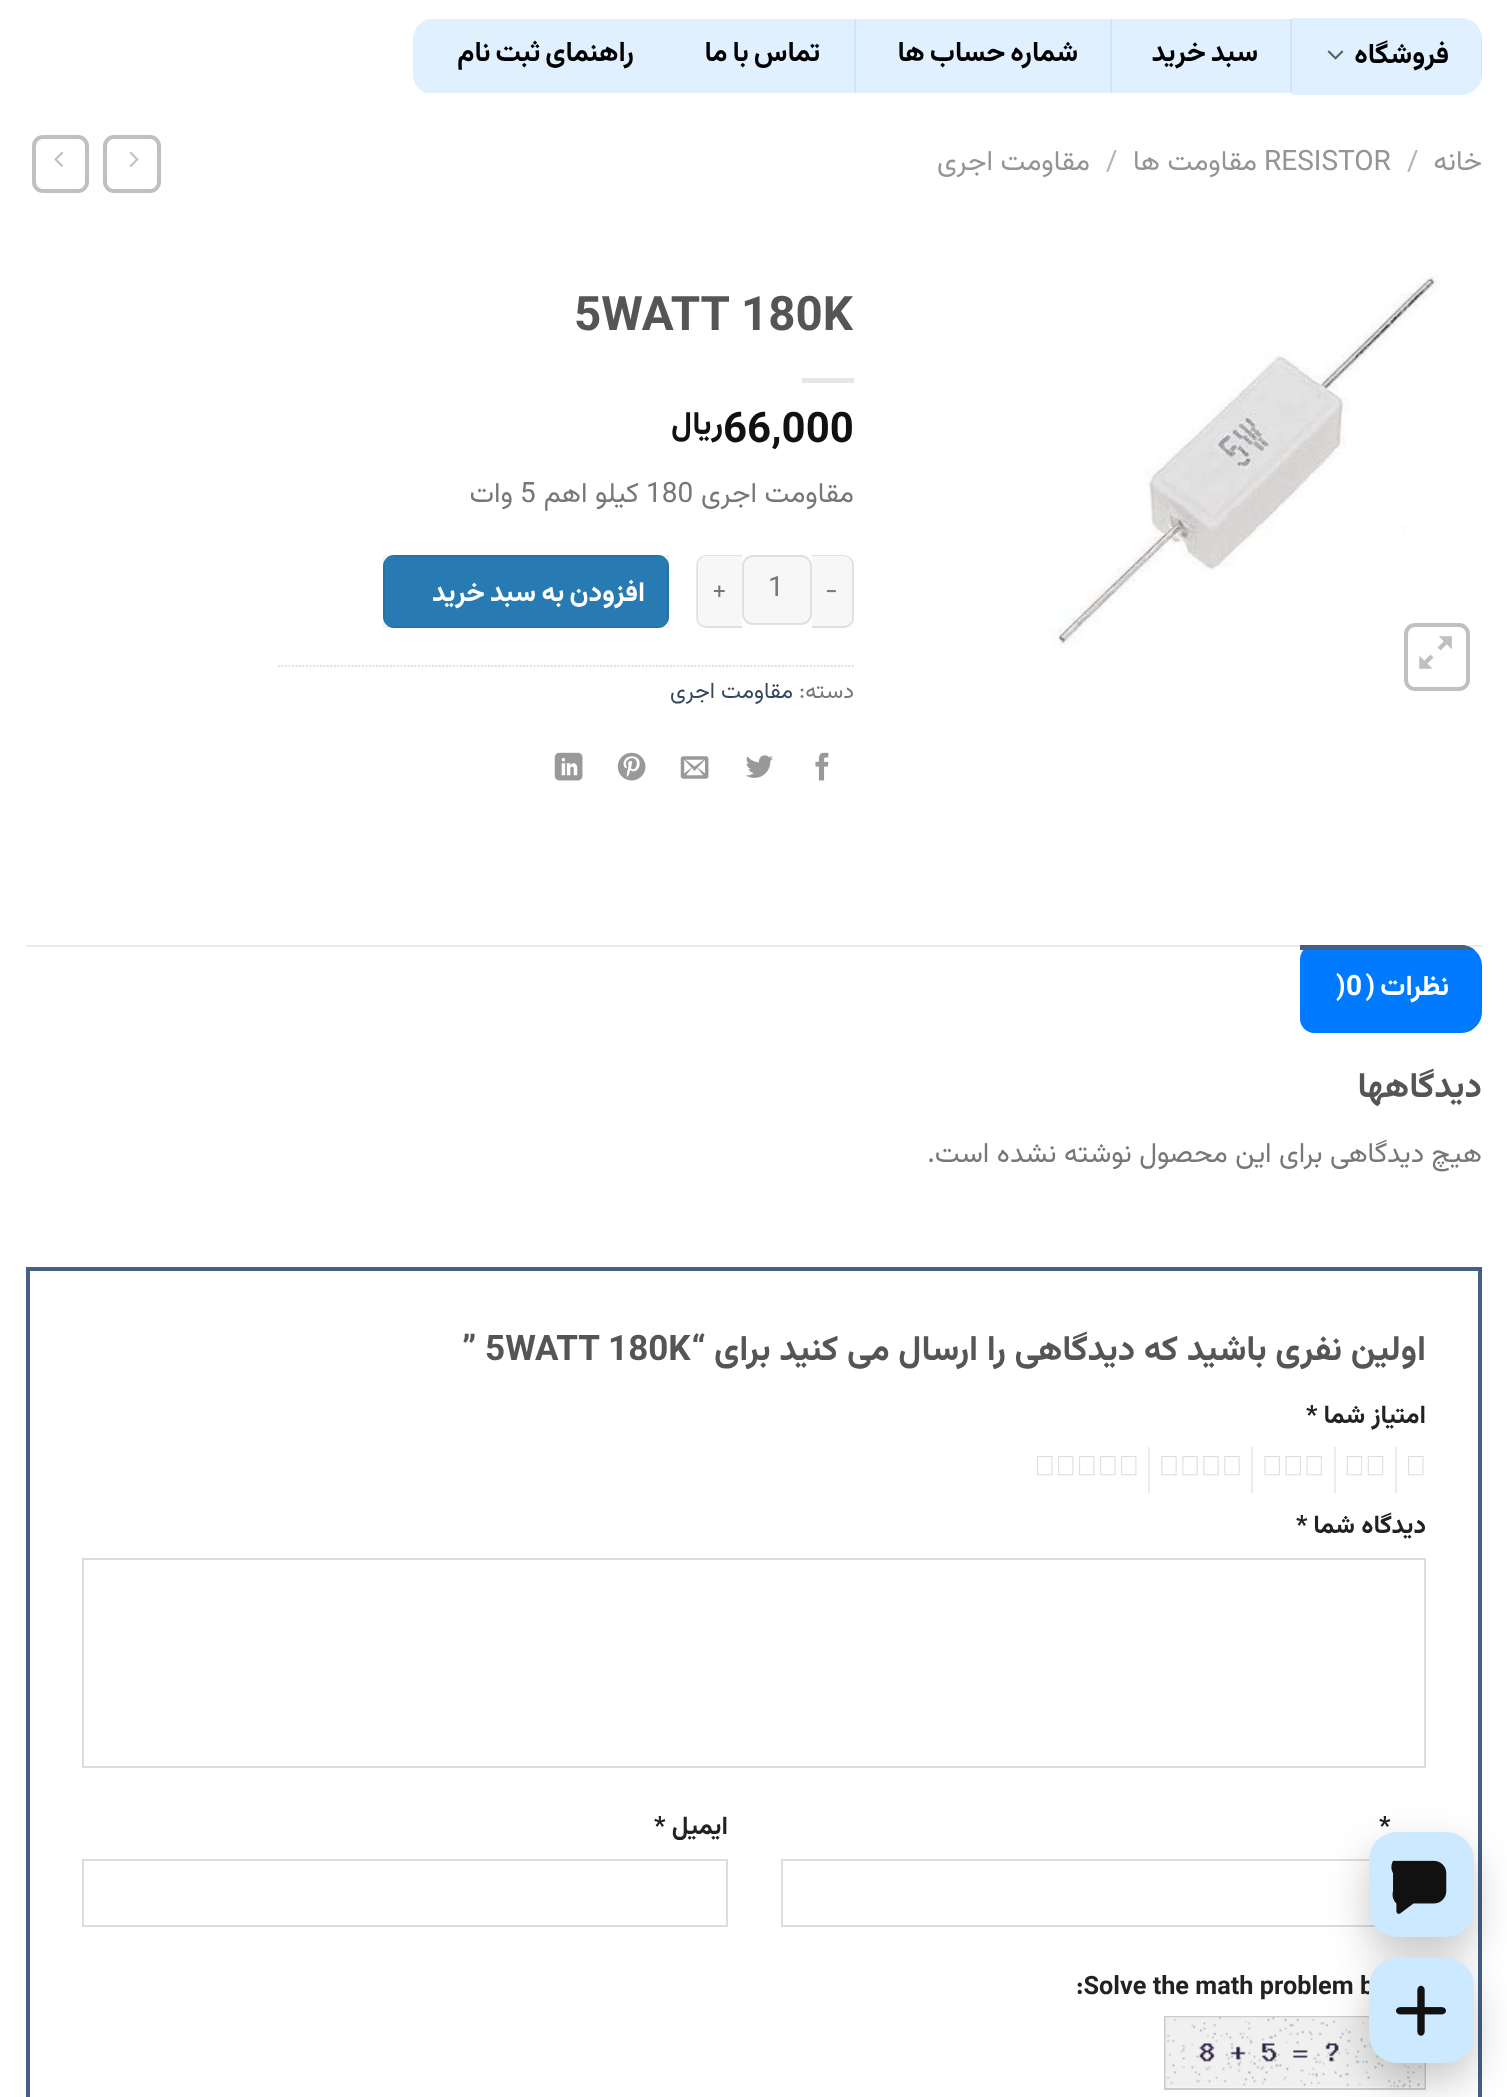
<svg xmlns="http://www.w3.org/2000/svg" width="1507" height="2097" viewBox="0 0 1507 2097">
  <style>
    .t1 { font: bold 28px Vazirmatn; letter-spacing: 0.5px; direction: rtl; fill: #000; }
    .t2 { font: 28px Vazirmatn; direction: rtl; fill: #949494; }
    .t3 { font: 28px Vazirmatn; fill: #b2b2b2; }
    .t4 { font: 28px Vazirmatn; fill: #949494; }
    .t5 { font: bold 47.5px Vazirmatn; fill: #555; }
    .t6 { font: bold 42px Vazirmatn; fill: #111; }
    .t7 { font: bold 32px Vazirmatn; direction: rtl; fill: #111; }
    .t8 { font: 28px Vazirmatn; direction: rtl; fill: #777; }
    .t9 { font: 28px Vazirmatn; fill: #777; }
    .t10 { font: 27.25px Vazirmatn; letter-spacing: 0.8px; fill: #777; }
    .t11 { font: bold 27.25px Vazirmatn; letter-spacing: 0.8px; direction: rtl; fill: #fff; }
    .t12 { font: 22.5px Vazirmatn; direction: rtl; fill: #777; }
    .t13 { font: 22.5px Vazirmatn; direction: rtl; fill: #334862; }
    .t14 { font: bold 28px Vazirmatn; letter-spacing: 0.5px; direction: rtl; fill: #fff; }
    .t15 { font: bold 28px Vazirmatn; letter-spacing: 0.5px; fill: #fff; }
    .t16 { font: bold 35px Vazirmatn; direction: rtl; fill: #555; }
    .t17 { font: bold 35px Vazirmatn; fill: #555; }
    .t18 { font: bold 25.25px Vazirmatn; direction: rtl; fill: #222; }
    .t19 { font: bold 25.25px Vazirmatn; fill: #222; }
  </style>
  <defs>
    <clipPath id="clip1"><rect x="413" y="18" width="1069" height="77" rx="21"/></clipPath>
    <clipPath id="clip2"><rect x="26" y="945" width="1456" height="88" rx="21"/></clipPath>
  </defs>
  <rect width="100%" height="100%" fill="#fff"/>
  <path d="M1292 18H1461C1472.5 18 1482 27.5 1482 39V74C1482 85.5 1472.5 95 1461 95H1292Z" fill="#e0f0ff"/>
  <g clip-path="url(#clip1)">
    <rect x="1481" y="32" width="1" height="49" fill="#cce6ff"/>
  </g>
  <text x="1449" y="63" class="t1">فروشگاه</text>
  <image x="1327" y="50" width="17" height="10" href="images/1.png"/>
  <rect x="1112" y="19" width="178" height="74" fill="#e0f0ff"/>
  <rect x="1290" y="19" width="2" height="74" fill="#cce6ff"/>
  <text x="1258" y="61" word-spacing="-2" class="t1">سبد خرید</text>
  <rect x="856" y="19" width="254" height="74" fill="#e0f0ff"/>
  <rect x="1110" y="19" width="2" height="74" fill="#cce6ff"/>
  <text x="1078" y="61" word-spacing="-2" class="t1">شماره حساب ها</text>
  <rect x="663" y="19" width="191" height="74" fill="#e0f0ff"/>
  <rect x="854" y="19" width="2" height="74" fill="#cce6ff"/>
  <text x="820" y="61" word-spacing="-2" class="t1">تماس با ما</text>
  <g clip-path="url(#clip1)">
    <rect x="413" y="19" width="250" height="74" fill="#e0f0ff"/>
  </g>
  <text x="634" y="61" word-spacing="-2" class="t1">راهنمای ثبت نام</text>
  <text x="1482" y="170" class="t2">خانه</text>
  <text x="1407" y="170" class="t3">/</text>
  <text x="1264" y="170" class="t4">RESISTOR</text>
  <text x="1257" y="170" class="t2">مقاومت ها</text>
  <text x="1106" y="170" class="t3">/</text>
  <text x="1090" y="170" class="t2">مقاومت اجری</text>
  <rect x="105" y="137" width="54" height="54" rx="9" fill="none" stroke="#c0c0c0" stroke-width="4"/>
  <image x="129" y="151" width="10" height="16" href="images/2.png"/>
  <rect x="34" y="137" width="53" height="54" rx="9" fill="none" stroke="#c0c0c0" stroke-width="4"/>
  <image x="54" y="151" width="10" height="16" href="images/3.png"/>
  <image x="1048" y="273" width="392" height="375" href="images/4.png"/>
  <rect x="1406" y="625" width="62" height="64" rx="9" fill="none" stroke="#c0c0c0" stroke-width="4"/>
  <image x="1419" y="636" width="33" height="33" href="images/5.png"/>
  <text x="574" y="330" class="t5">5WATT 180K</text>
  <rect x="802" y="378" width="52" height="5" fill="#e6e6e6"/>
  <text x="723" y="442" class="t6">66,000</text>
  <text x="723" y="434" class="t7">ریال</text>
  <text x="854" y="502" class="t8">مقاومت اجری</text>
  <text x="646" y="502" class="t9">180</text>
  <text x="639" y="502" class="t8">کیلو اهم</text>
  <text x="520" y="502" class="t9">5</text>
  <text x="513" y="502" class="t8">وات</text>
  <path d="M812 555H843C849 555 854 560 854 566V617C854 623 849 628 843 628H812Z" fill="#f7f7f7"/>
  <path d="M812 555H844C849 555 854 559 854 565V618C854 624 849 628 844 628H812ZM812 556H844C848 556 852 560 852 565V618C852 623 848 626 844 626H812Z" fill="#00000017" fill-rule="evenodd"/>
  <text x="825" y="598" class="t10">-</text>
  <rect x="742" y="555" width="70" height="70" rx="11" fill="#f7f7f7"/>
  <rect x="743" y="556" width="68" height="68" rx="10" fill="none" stroke="#00000017" stroke-width="2"/>
  <text x="768" y="596" class="t9">1</text>
  <path d="M708 555H742V628H708C702 628 697 623 697 617V566C697 560 702 555 708 555Z" fill="#f7f7f7"/>
  <path d="M707 555H742V628H707C701 628 696 624 696 618V565C696 559 701 555 707 555ZM707 556H742V626H707C702 626 698 623 698 618V565C698 560 702 556 707 556Z" fill="#00000017" fill-rule="evenodd"/>
  <text x="712" y="598" class="t10">+</text>
  <rect x="383" y="555" width="286" height="73" rx="11" fill="#287bb2"/>
  <rect x="384" y="556" width="284" height="71" fill="none" stroke="#0000000d" stroke-width="2"/>
  <text x="645" y="601" word-spacing="-1.5" class="t11">افزودن به سبد خرید</text>
  <path d="M278 666H854" fill="none" stroke="#ddd" stroke-width="1.8" stroke-dasharray="1.75 1.75"/>
  <text x="854" y="698" class="t12">دسته:</text>
  <text x="793" y="698" class="t13">مقاومت اجری</text>
  <image x="815" y="752" width="14" height="29" href="images/6.png"/>
  <image x="745" y="755" width="28" height="23" href="images/7.png"/>
  <image x="680" y="756" width="29" height="23" href="images/8.png"/>
  <image x="617" y="752" width="29" height="29" href="images/9.png"/>
  <image x="554" y="752" width="29" height="29" href="images/10.png"/>
  <rect x="26" y="945" width="1456" height="2" fill="#ececec"/>
  <path d="M1314 945H1461C1472.5 945 1482 954.5 1482 966V1012C1482 1023.5 1472.5 1033 1461 1033H1314C1306.5 1033 1300 1026.5 1300 1019V959C1300 951.5 1306.5 945 1314 945Z" fill="#007bff"/>
  <g clip-path="url(#clip2)">
    <rect x="1300" y="945" width="182" height="5" fill="#446084"/>
  </g>
  <text x="1449" y="995" word-spacing="-2" class="t14">نظرات (</text>
  <text x="1346" y="995" class="t15">0</text>
  <text x="1336" y="995" class="t15">)</text>
  <text x="1482" y="1097" class="t16">دیدگاهها</text>
  <text x="1482" y="1162" class="t8">هیچ دیدگاهی برای این محصول نوشته نشده است.</text>
  <rect x="28" y="1269" width="1452" height="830" fill="none" stroke="#446084" stroke-width="4"/>
  <text x="1426" y="1360" word-spacing="-0.25" class="t16">اولین نفری باشید که دیدگاهی را ارسال می کنید برای “</text>
  <text x="462" y="1360" class="t17">” 5WATT 180K</text>
  <text x="1426" y="1423" class="t18">امتیاز شما</text>
  <text x="1306" y="1423" class="t19">*</text>
  <image x="1408" y="1456" width="16" height="20" href="images/11.png"/>
  <rect x="1395" y="1447" width="2" height="46" fill="#ececec"/>
  <image x="1346" y="1456" width="38" height="20" href="images/12.png"/>
  <rect x="1334" y="1447" width="2" height="46" fill="#ececec"/>
  <image x="1264" y="1456" width="58" height="20" href="images/13.png"/>
  <rect x="1251" y="1447" width="2" height="46" fill="#ececec"/>
  <image x="1161" y="1456" width="79" height="20" href="images/14.png"/>
  <rect x="1148" y="1447" width="2" height="46" fill="#ececec"/>
  <image x="1037" y="1456" width="100" height="20" href="images/15.png"/>
  <text x="1426" y="1533" class="t18">دیدگاه شما</text>
  <text x="1296" y="1533" class="t19">*</text>
  <rect x="83" y="1559" width="1342" height="208" fill="none" stroke="#ddd" stroke-width="2"/>
  <text x="1379" y="1834" class="t19">*</text>
  <rect x="782" y="1860" width="643" height="66" fill="none" stroke="#ddd" stroke-width="2"/>
  <text x="728" y="1834" class="t18">ایمیل</text>
  <text x="654" y="1834" class="t19">*</text>
  <rect x="83" y="1860" width="644" height="66" fill="none" stroke="#ddd" stroke-width="2"/>
  <text x="1076" y="1994" class="t19">:Solve the math problem b</text>
  <rect x="1166" y="2087" width="258" height="1" fill="#f7f7f7"/>
  <rect x="1165" y="2017" width="260" height="72" fill="none" stroke="#ccc" stroke-width="2"/>
  <image x="1165" y="2017" width="260" height="71" href="images/16.png"/>
  <rect x="1369" y="1850" width="105" height="105" rx="28" fill="#00000038" filter="blur(21px)"/>
  <rect x="1369" y="1832" width="105" height="105" rx="28" fill="#cce9ff"/>
  <image x="1391" y="1860" width="56" height="54" href="images/17.png"/>
  <rect x="1369" y="1976" width="105" height="105" rx="28" fill="#00000038" filter="blur(21px)"/>
  <rect x="1369" y="1958" width="105" height="105" rx="28" fill="#cce9ff"/>
  <image x="1396" y="1985" width="50" height="51" href="images/18.png"/>
</svg>
